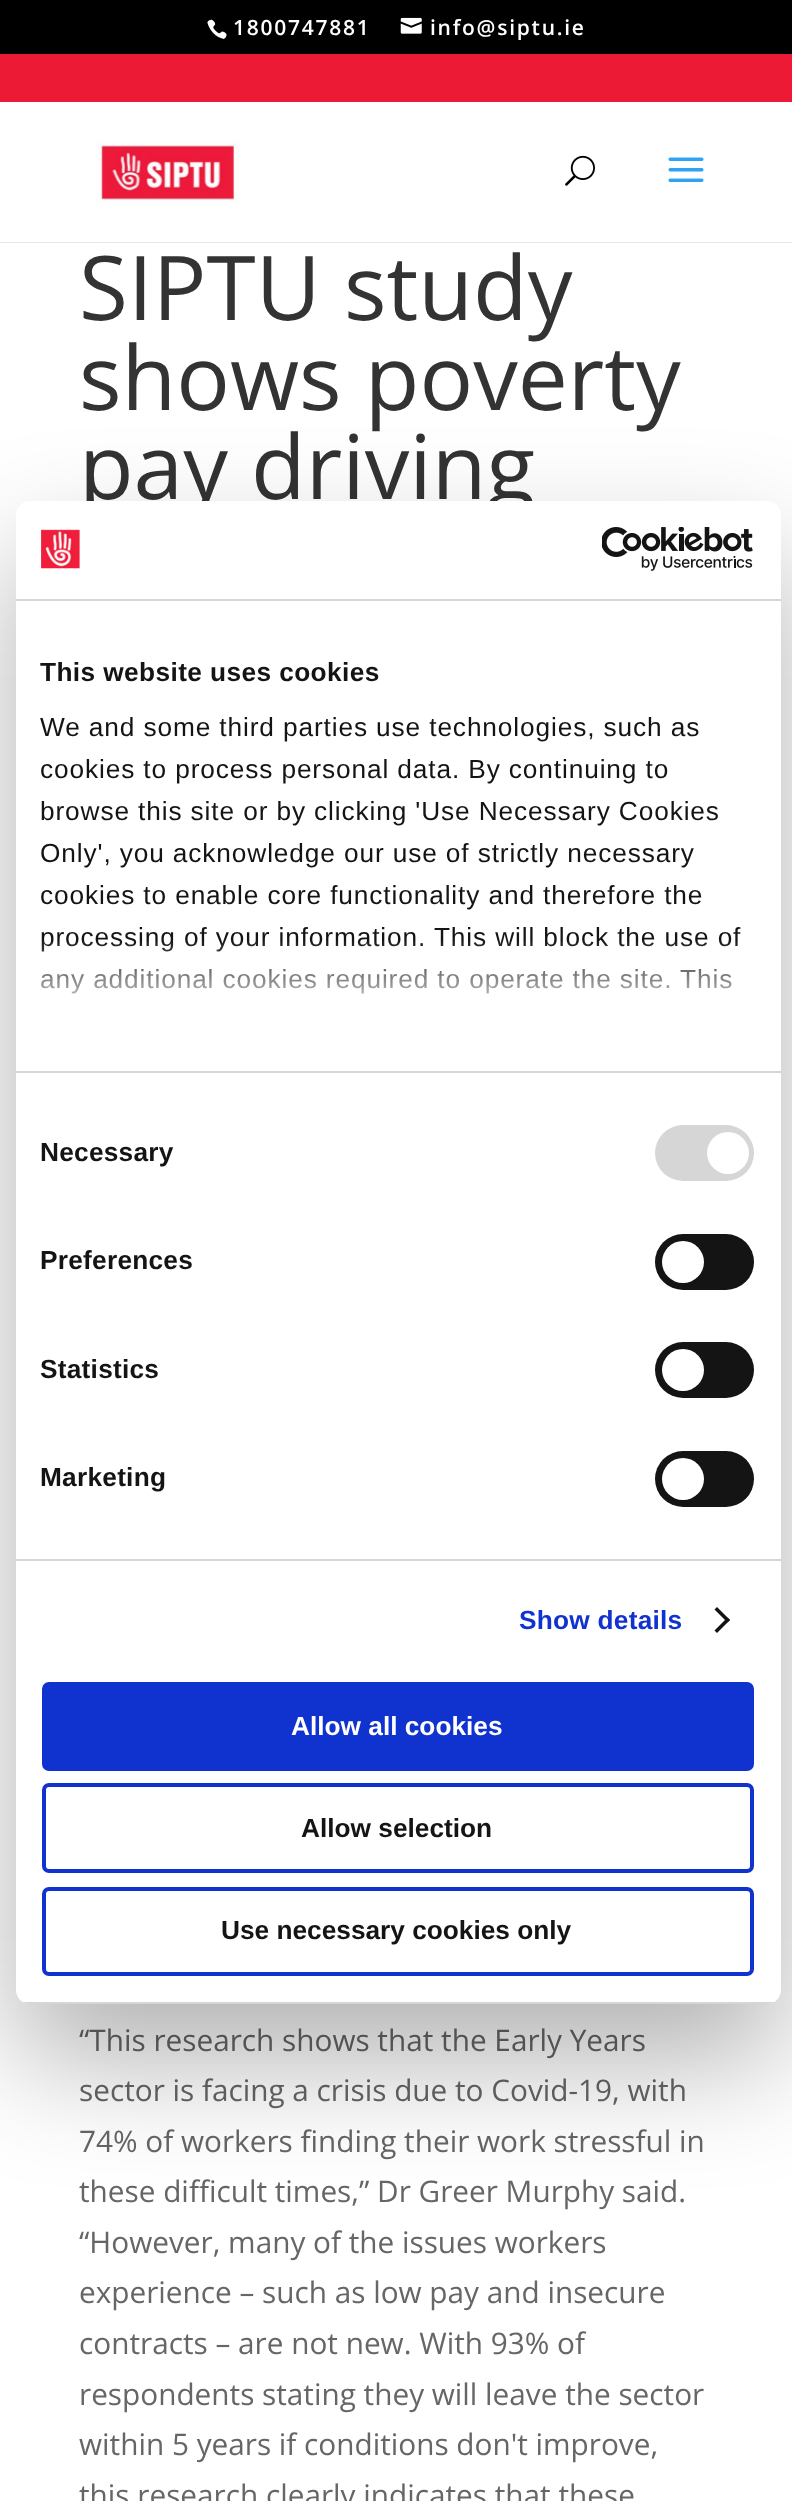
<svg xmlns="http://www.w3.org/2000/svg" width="792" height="2501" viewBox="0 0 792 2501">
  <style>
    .t1 { font: 600 21px Open Sans; letter-spacing: 1.75px; fill: #fff; }
    .t2 { font: 89.25px Open Sans; fill: #333; }
    .t3 { font: 29.75px Open Sans; fill: #666; }
    .t4 { font: bold 26.25px Liberation Sans; letter-spacing: 0.4px; fill: #141414; }
    .t5 { font: 26.25px Liberation Sans; letter-spacing: 0.88px; fill: #141414; }
    .t6 { font: bold 26.25px Liberation Sans; letter-spacing: 0.25px; fill: #141414; }
    .t7 { font: bold 26.25px Liberation Sans; letter-spacing: 0.25px; fill: #1032cf; }
    .t8 { font: bold 26.25px Liberation Sans; fill: #fff; }
    .t9 { font: bold 26.25px Liberation Sans; fill: #141414; }
  </style>
  <defs>
    <linearGradient id="g1" gradientUnits="userSpaceOnUse" x1="386" y1="1071" x2="386" y2="939"><stop offset="0" stop-color="#fff"/><stop offset="0.5" stop-color="#fff" stop-opacity="0.8"/><stop offset="1" stop-color="#fff" stop-opacity="0"/></linearGradient>
    <clipPath id="clip1"><rect x="16" y="501" width="765" height="1503" rx="14"/></clipPath>
  </defs>
  <rect width="100%" height="100%" fill="#ed1a35"/>
  <rect x="0" y="0" width="792" height="54" fill="#000"/>
  <image x="207" y="19" width="20" height="20" href="images/1.png"/>
  <text x="233" y="35" class="t1">1800747881</text>
  <image x="400" y="17" width="22" height="17" href="images/2.png"/>
  <text x="430" y="35" class="t1">info@siptu.ie</text>
  <path d="M0 242V243H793V103V242Z" fill="#e6e6e6"/>
  <rect x="0" y="102" width="792" height="140" fill="#fff"/>
  <image x="95" y="141" width="145" height="62" href="images/3.png"/>
  <image x="565" y="155" width="30" height="31" href="images/4.png"/>
  <image x="668" y="157" width="36" height="25" href="images/5.png"/>
  <rect x="0" y="243" width="792" height="2258" fill="#fff"/>
  <text x="79" y="320" class="t2">SIPTU study</text>
  <text x="79" y="410" class="t2">shows poverty</text>
  <text x="79" y="499" class="t2">pay driving</text>
  <text x="79" y="2051" class="t3">“This research shows that the Early Years</text>
  <text x="79" y="2101" class="t3">sector is facing a crisis due to Covid-19, with</text>
  <text x="79" y="2152" class="t3">74% of workers finding their work stressful in</text>
  <text x="79" y="2202" class="t3">these difficult times,” Dr Greer Murphy said.</text>
  <text x="79" y="2253" class="t3">“However, many of the issues workers</text>
  <text x="79" y="2303" class="t3">experience – such as low pay and insecure</text>
  <text x="79" y="2354" class="t3">contracts – are not new. With 93% of</text>
  <text x="79" y="2405" class="t3">respondents stating they will leave the sector</text>
  <text x="79" y="2455" class="t3">within 5 years if conditions don't improve,</text>
  <text x="79" y="2506" class="t3">this research clearly indicates that these</text>
  <rect x="16" y="557" width="765" height="1503" rx="14" fill="#0000004d" filter="blur(59.5px)"/>
  <rect x="16" y="501" width="765" height="1503" rx="14" fill="#fff"/>
  <rect x="16" y="599" width="765" height="2" fill="#d6d6d6"/>
  <image x="41" y="529" width="39" height="40" href="images/6.png"/>
  <image x="602" y="527" width="151" height="44" href="images/7.png"/>
  <rect x="16" y="1071" width="765" height="2" fill="#d6d6d6"/>
  <text x="40" y="681" class="t4">This website uses cookies</text>
  <text x="40" y="736" class="t5">We and some third parties use technologies, such as</text>
  <text x="40" y="778" class="t5">cookies to process personal data. By continuing to</text>
  <text x="40" y="820" class="t5">browse this site or by clicking 'Use Necessary Cookies</text>
  <text x="40" y="862" class="t5">Only', you acknowledge our use of strictly necessary</text>
  <text x="40" y="904" class="t5">cookies to enable core functionality and therefore the</text>
  <text x="40" y="946" class="t5">processing of your information. This will block the use of</text>
  <text x="40" y="988" class="t5">any additional cookies required to operate the site. This</text>
  <rect x="41" y="941" width="697" height="53" fill="url(#g1)"/>
  <rect x="16" y="1559" width="765" height="2" fill="#d6d6d6"/>
  <text x="40" y="1161" class="t6">Necessary</text>
  <rect x="655" y="1125" width="99" height="56" rx="28" fill="#d6d6d6"/>
  <circle cx="728" cy="1153" r="21" fill="#fff"/>
  <text x="40" y="1269" class="t6">Preferences</text>
  <rect x="655" y="1234" width="99" height="56" rx="28" fill="#141414"/>
  <circle cx="683" cy="1262" r="21" fill="#fff"/>
  <text x="40" y="1378" class="t6">Statistics</text>
  <rect x="655" y="1342" width="99" height="56" rx="28" fill="#141414"/>
  <circle cx="683" cy="1370" r="21" fill="#fff"/>
  <text x="40" y="1486" class="t6">Marketing</text>
  <rect x="655" y="1451" width="99" height="56" rx="28" fill="#141414"/>
  <circle cx="683" cy="1479" r="21" fill="#fff"/>
  <text x="519" y="1629" class="t7">Show details</text>
  <path d="M717 1607L730 1620L727.5 1622.5L714.5 1609.5Z" fill="#141414"/>
  <path d="M727.5 1617.5L730 1620L717 1633L714.5 1630.5Z" fill="#141414"/>
  <g clip-path="url(#clip1)">
    <rect x="16" y="2002" width="765" height="2" fill="#d6d6d6"/>
  </g>
  <rect x="44" y="1684" width="708" height="85" rx="5" fill="#1032cf" stroke="#1032cf" stroke-width="4"/>
  <text x="291" y="1735" class="t8">Allow all cookies</text>
  <rect x="44" y="1785" width="708" height="86" rx="5" fill="none" stroke="#1032cf" stroke-width="4"/>
  <text x="301" y="1837" class="t9">Allow selection</text>
  <rect x="44" y="1889" width="708" height="85" rx="5" fill="none" stroke="#1032cf" stroke-width="4"/>
  <text x="221" y="1939" class="t9">Use necessary cookies only</text>
</svg>
